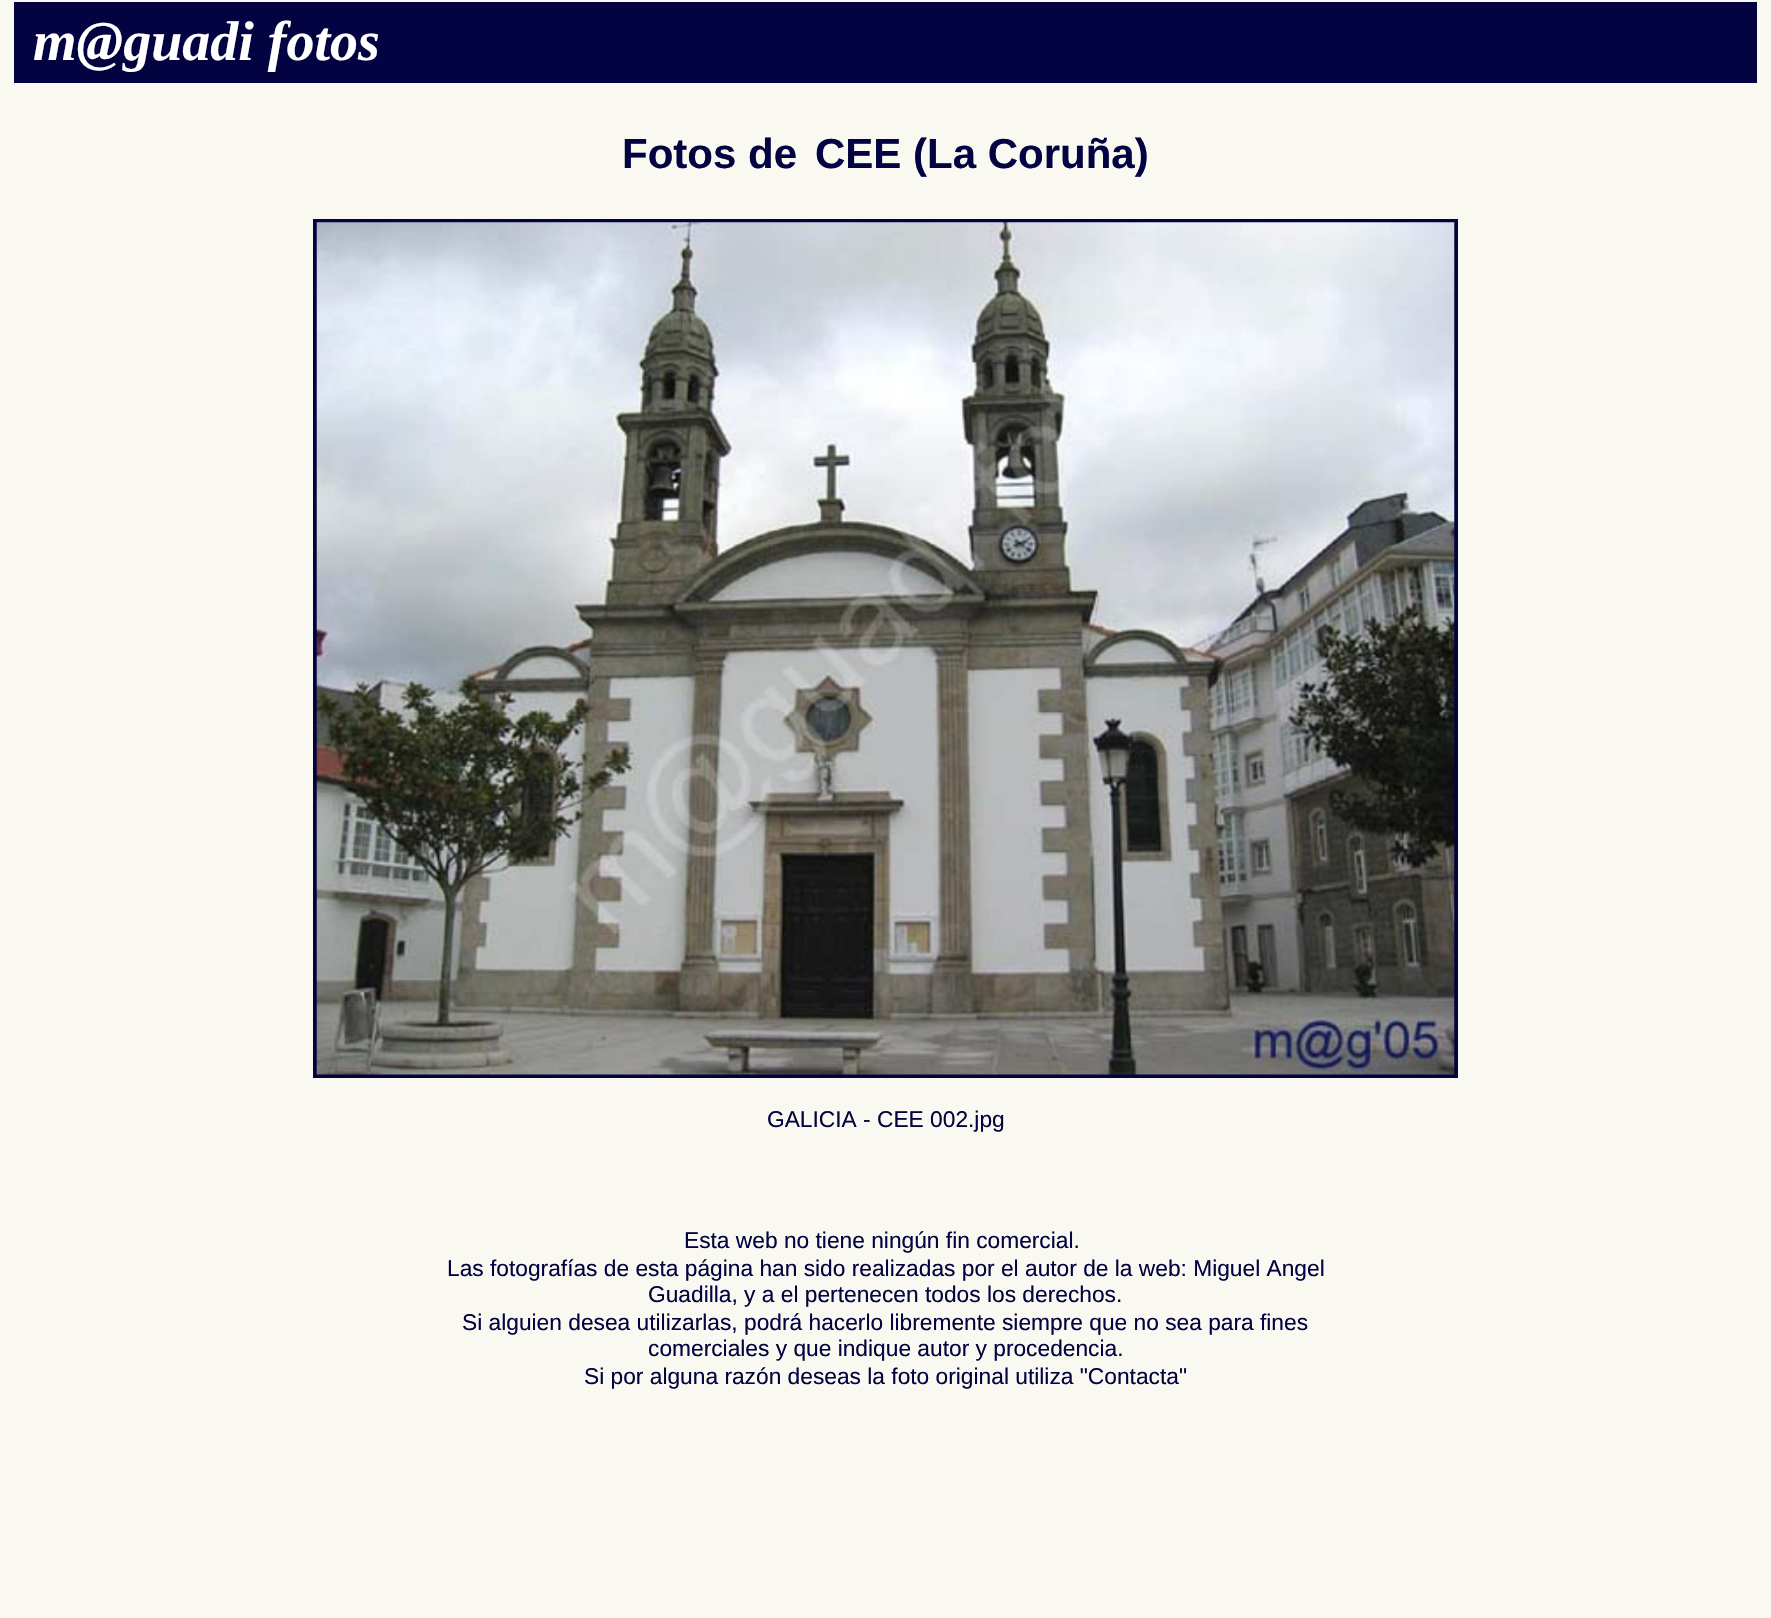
#include "include/core/SkBlurTypes.h"
#include "include/core/SkCanvas.h"
#include "include/core/SkData.h"
#include "include/core/SkFont.h"
#include "include/core/SkFontMgr.h"
#include "include/core/SkImage.h"
#include "include/core/SkMaskFilter.h"
#include "include/core/SkPaint.h"
#include "include/core/SkPathBuilder.h"
#include "include/core/SkTextBlob.h"
#include "include/effects/SkDashPathEffect.h"
#include "include/effects/SkGradientShader.h"
#include "include/utils/SkParsePath.h"

extern sk_sp<SkFontMgr> fontMgr;

static SkFont font(const char* family, int weight, float size, bool italic = false) {
    SkFontStyle style(weight, SkFontStyle::kNormal_Width,
        italic ? SkFontStyle::kItalic_Slant : SkFontStyle::kUpright_Slant);
    SkFont result(fontMgr->matchFamilyStyle(family, style), size);
    result.setSubpixel(true);
    return result;
}

static void drawLabel(SkCanvas* canvas, const char* s, float x, float y, const SkFont& font, SkColor color) {
    SkPaint ink(SkColor4f::FromColor(color));
    ink.setAntiAlias(true);
    canvas->drawString(s, x, y, font, ink);
}

static void fillRect(SkCanvas* canvas, float x, float y, float w, float h, SkColor color) {
    SkPaint ink(SkColor4f::FromColor(color));
    ink.setAntiAlias(true);
    canvas->drawRect(SkRect::MakeXYWH(x, y, w, h), ink);
}

static void drawPhoto(SkCanvas* canvas, const char* path, float x, float y, float w, float h) {
    auto image = SkImages::DeferredFromEncodedData(SkData::MakeFromFileName(path));
    canvas->drawImageRect(image, SkRect::MakeXYWH(x, y, w, h), SkSamplingOptions());
}

void draw(SkCanvas* canvas) {
    SkPaint paint;
    paint.setAntiAlias(true);
    canvas->clear(0xFFF9F9F2);
    fillRect(canvas, 14, 2, 1743, 81, 0xFF020340);
    SkFont font1 = font("Liberation Serif", 700, 56, true);
    drawLabel(canvas, "m@guadi fotos", 33, 60, font1, 0xFFFFFFFF);
    SkFont font2 = font("Liberation Sans", 700, 42);
    drawLabel(canvas, "Fotos de", 622, 168, font2, 0xFF020340);
    drawLabel(canvas, "CEE (La Coruña)", 815, 168, font2, 0xFF020340);
    paint.setStroke(true);
    paint.setStrokeWidth(4);
    paint.setColor(0xFF020340);
    canvas->drawRect(SkRect::MakeXYWH(315, 221, 1141, 855), paint);
    drawPhoto(canvas, "assets/img1.png", 316, 222, 1139, 853);
    SkFont font3 = font("Liberation Sans", 400, 22.75f);
    drawLabel(canvas, "GALICIA - CEE 002.jpg", 767, 1127, font3, 0xFF020340);
    drawLabel(canvas, "Esta web no tiene ningún fin comercial.", 684, 1248, font3, 0xFF020340);
    drawLabel(canvas, "Las fotografías de esta página han sido realizadas por el autor de la web: Miguel Angel", 447, 1276, font3, 0xFF020340);
    drawLabel(canvas, "Guadilla, y a el pertenecen todos los derechos.", 648, 1302, font3, 0xFF020340);
    drawLabel(canvas, "Si alguien desea utilizarlas, podrá hacerlo libremente siempre que no sea para fines", 462, 1330, font3, 0xFF020340);
    drawLabel(canvas, "comerciales y que indique autor y procedencia.", 648, 1356, font3, 0xFF020340);
    drawLabel(canvas, "Si por alguna razón deseas la foto original utiliza \"Contacta\"", 584, 1384, font3, 0xFF020340);
}
